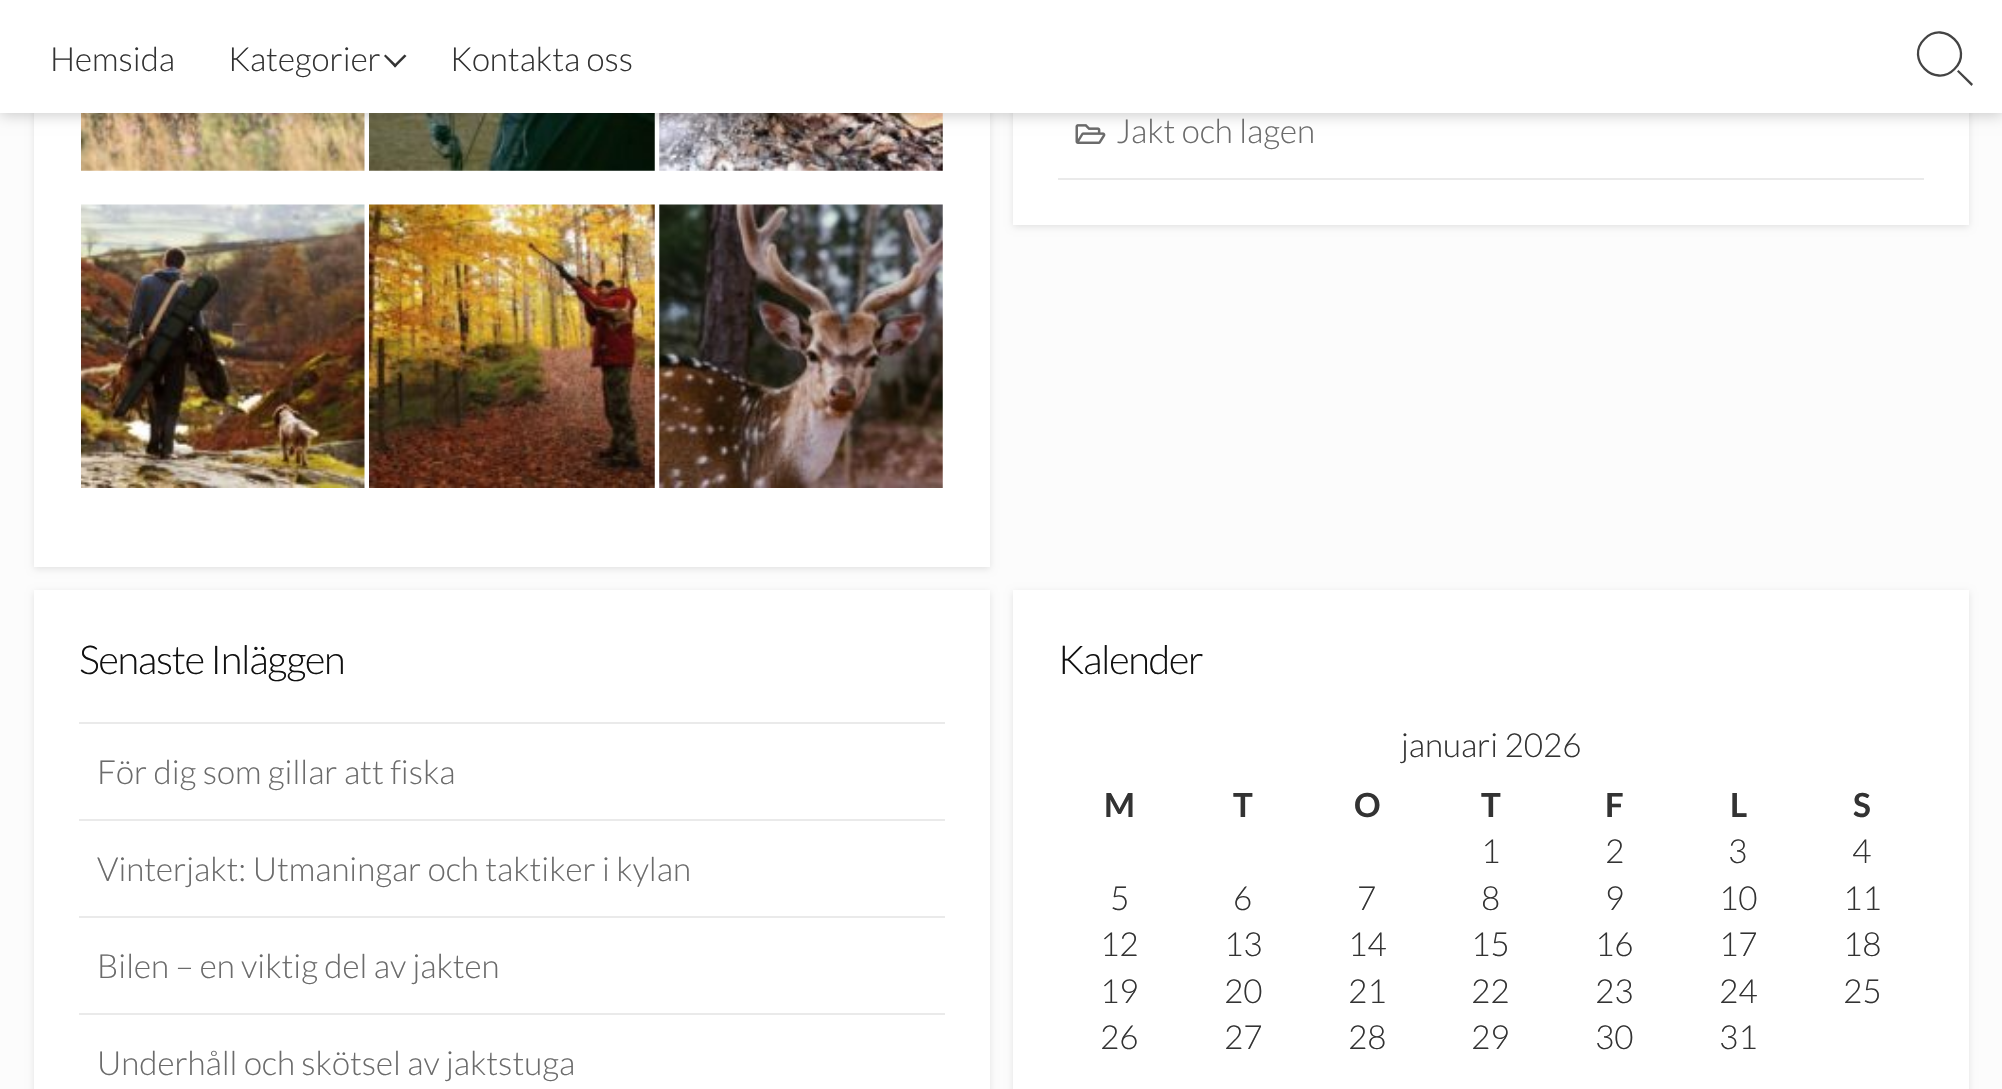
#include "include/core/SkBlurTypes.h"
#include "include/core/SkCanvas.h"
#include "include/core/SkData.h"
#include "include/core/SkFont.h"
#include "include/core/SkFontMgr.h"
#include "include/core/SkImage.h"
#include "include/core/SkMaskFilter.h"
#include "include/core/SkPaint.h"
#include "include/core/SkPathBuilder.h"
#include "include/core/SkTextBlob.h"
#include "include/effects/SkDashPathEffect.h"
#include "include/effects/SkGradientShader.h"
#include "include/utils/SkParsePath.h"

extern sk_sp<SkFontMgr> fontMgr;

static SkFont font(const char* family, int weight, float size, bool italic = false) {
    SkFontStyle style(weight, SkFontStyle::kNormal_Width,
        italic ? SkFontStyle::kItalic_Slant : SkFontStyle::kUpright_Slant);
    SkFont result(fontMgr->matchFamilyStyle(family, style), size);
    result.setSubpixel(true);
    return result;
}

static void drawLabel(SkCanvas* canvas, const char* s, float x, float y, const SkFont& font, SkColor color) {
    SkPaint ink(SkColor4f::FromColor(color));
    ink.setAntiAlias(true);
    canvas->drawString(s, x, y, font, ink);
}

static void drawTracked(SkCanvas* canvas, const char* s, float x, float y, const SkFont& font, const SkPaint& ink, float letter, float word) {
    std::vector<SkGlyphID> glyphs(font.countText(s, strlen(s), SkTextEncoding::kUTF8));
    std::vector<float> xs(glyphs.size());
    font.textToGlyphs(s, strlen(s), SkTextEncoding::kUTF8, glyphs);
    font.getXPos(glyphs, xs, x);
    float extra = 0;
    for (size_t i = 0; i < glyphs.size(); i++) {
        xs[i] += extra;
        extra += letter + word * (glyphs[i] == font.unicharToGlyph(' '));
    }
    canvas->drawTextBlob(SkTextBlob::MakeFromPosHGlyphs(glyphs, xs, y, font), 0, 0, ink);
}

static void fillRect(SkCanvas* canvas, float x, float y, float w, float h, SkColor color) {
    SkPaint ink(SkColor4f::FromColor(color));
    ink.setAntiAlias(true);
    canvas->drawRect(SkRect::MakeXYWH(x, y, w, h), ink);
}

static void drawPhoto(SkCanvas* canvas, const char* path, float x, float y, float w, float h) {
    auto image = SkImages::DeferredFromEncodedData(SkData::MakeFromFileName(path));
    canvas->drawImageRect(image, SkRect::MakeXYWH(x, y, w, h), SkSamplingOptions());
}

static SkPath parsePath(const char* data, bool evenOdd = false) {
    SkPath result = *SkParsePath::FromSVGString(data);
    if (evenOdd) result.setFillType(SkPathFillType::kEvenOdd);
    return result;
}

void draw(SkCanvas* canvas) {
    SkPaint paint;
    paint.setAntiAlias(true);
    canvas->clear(0xFFFCFCFC);
    paint.setColor(0x1A000000);
    paint.setMaskFilter(SkMaskFilter::MakeBlur(kNormal_SkBlurStyle, 3.5f));
    canvas->drawRect(SkRect::MakeXYWH(34, -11, 956, 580), paint);
    paint.setMaskFilter(nullptr);
    fillRect(canvas, 34, 113, 956, 454, 0xFFFFFFFF);
    drawPhoto(canvas, "assets/img1.png", 81, 113, 284, 58);
    drawPhoto(canvas, "assets/img2.png", 369, 113, 286, 58);
    drawPhoto(canvas, "assets/img3.png", 659, 113, 284, 58);
    paint.setMaskFilter(SkMaskFilter::MakeBlur(kNormal_SkBlurStyle, 3.5f));
    canvas->drawRect(SkRect::MakeXYWH(1013, -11, 956, 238), paint);
    paint.setMaskFilter(nullptr);
    fillRect(canvas, 1013, 113, 956, 112, 0xFFFFFFFF);
    drawPhoto(canvas, "assets/img7.png", 1075, 124, 31, 20);
    paint.setColor(0x33000000);
    paint.setMaskFilter(SkMaskFilter::MakeBlur(kNormal_SkBlurStyle, 7));
    canvas->drawRect(SkRect::MakeXYWH(0, -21, 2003, 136), paint);
    paint.setMaskFilter(nullptr);
    fillRect(canvas, 0, 0, 2002, 113, 0xFFFFFFFF);
    SkFont font1 = font("Lato", 300, 33.2f);
    drawLabel(canvas, "Hemsida", 50, 71, font1, 0xFF333333);
    drawLabel(canvas, "Kategorier", 228, 71, font1, 0xFF333333);
    paint.setColor(0xFF333333);
    canvas->drawPath(parsePath("M404.5 54.5L406.5 56L395 67.5L393.5 65.5Z"), paint);
    canvas->drawPath(parsePath("M385.5 54.5L397 65.5L395 67.5L384 56Z"), paint);
    drawLabel(canvas, "Kontakta oss", 450, 71, font1, 0xFF333333);
    paint.setStroke(true);
    paint.setStrokeWidth(2.3f);
    paint.setColor(0xFF444444);
    canvas->drawPath(parsePath("M1924.5 39C1944 19 1974.5 49.5 1954.5 69C1935 89 1904.5 58.5 1924.5 39Z"), paint);
    paint.setStroke(false);
    canvas->drawPath(parsePath("M1957 71.5L1958.5 70L1973 84L1971.5 86Z"), paint);
    drawPhoto(canvas, "assets/img4.png", 81, 204, 284, 284);
    drawPhoto(canvas, "assets/img5.png", 369, 204, 286, 284);
    drawPhoto(canvas, "assets/img6.png", 659, 204, 284, 284);
    fillRect(canvas, 1058, 178, 866, 2, 0xFFEAEAEA);
    drawLabel(canvas, "Jakt och lagen", 1116, 143, font1, 0xFF6B6B6B);
    paint.setColor(0x1A000000);
    paint.setMaskFilter(SkMaskFilter::MakeBlur(kNormal_SkBlurStyle, 3.5f));
    canvas->drawRect(SkRect::MakeXYWH(34, 592, 956, 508), paint);
    paint.setMaskFilter(nullptr);
    fillRect(canvas, 34, 590, 956, 499, 0xFFFFFFFF);
    SkFont font2 = font("Lato", 300, 39.75f);
    paint.setColor(0xFF111111);
    drawTracked(canvas, "Senaste Inläggen", 79, 674, font2, paint, -1.25f, 0);
    fillRect(canvas, 79, 722, 866, 2, 0xFFEAEAEA);
    fillRect(canvas, 79, 819, 866, 2, 0xFFEAEAEA);
    drawLabel(canvas, "För dig som gillar att fiska", 97, 784, font1, 0xFF6B6B6B);
    fillRect(canvas, 79, 916, 866, 2, 0xFFEAEAEA);
    drawLabel(canvas, "Vinterjakt: Utmaningar och taktiker i kylan", 97, 881, font1, 0xFF6B6B6B);
    fillRect(canvas, 79, 1013, 866, 2, 0xFFEAEAEA);
    drawLabel(canvas, "Bilen – en viktig del av jakten", 97, 978, font1, 0xFF6B6B6B);
    drawLabel(canvas, "Underhåll och skötsel av jaktstuga", 97, 1075, font1, 0xFF6B6B6B);
    paint.setColor(0x1A000000);
    paint.setMaskFilter(SkMaskFilter::MakeBlur(kNormal_SkBlurStyle, 3.5f));
    canvas->drawRect(SkRect::MakeXYWH(1013, 592, 956, 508), paint);
    paint.setMaskFilter(nullptr);
    fillRect(canvas, 1013, 590, 956, 499, 0xFFFFFFFF);
    paint.setColor(0xFF111111);
    drawTracked(canvas, "Kalender", 1058, 674, font2, paint, -1.25f, 0);
    drawLabel(canvas, "januari 2026", 1401, 757, font1, 0xFF333333);
    SkFont font3 = font("Lato", 700, 33.2f);
    drawLabel(canvas, "M", 1104, 817, font3, 0xFF333333);
    drawLabel(canvas, "T", 1233, 817, font3, 0xFF333333);
    drawLabel(canvas, "O", 1354, 817, font3, 0xFF333333);
    drawLabel(canvas, "T", 1481, 817, font3, 0xFF333333);
    drawLabel(canvas, "F", 1605, 817, font3, 0xFF333333);
    drawLabel(canvas, "L", 1730, 817, font3, 0xFF333333);
    drawLabel(canvas, "S", 1853, 817, font3, 0xFF333333);
    drawLabel(canvas, "1", 1481, 863, font1, 0xFF333333);
    drawLabel(canvas, "2", 1605, 863, font1, 0xFF333333);
    drawLabel(canvas, "3", 1728, 863, font1, 0xFF333333);
    drawLabel(canvas, "4", 1852, 863, font1, 0xFF333333);
    drawLabel(canvas, "5", 1110, 910, font1, 0xFF333333);
    drawLabel(canvas, "6", 1233, 910, font1, 0xFF333333);
    drawLabel(canvas, "7", 1357, 910, font1, 0xFF333333);
    drawLabel(canvas, "8", 1481, 910, font1, 0xFF333333);
    drawLabel(canvas, "9", 1605, 910, font1, 0xFF333333);
    drawLabel(canvas, "10", 1719, 910, font1, 0xFF333333);
    drawLabel(canvas, "11", 1843, 910, font1, 0xFF333333);
    drawLabel(canvas, "12", 1100, 956, font1, 0xFF333333);
    drawLabel(canvas, "13", 1224, 956, font1, 0xFF333333);
    drawLabel(canvas, "14", 1348, 956, font1, 0xFF333333);
    drawLabel(canvas, "15", 1471, 956, font1, 0xFF333333);
    drawLabel(canvas, "16", 1595, 956, font1, 0xFF333333);
    drawLabel(canvas, "17", 1719, 956, font1, 0xFF333333);
    drawLabel(canvas, "18", 1843, 956, font1, 0xFF333333);
    drawLabel(canvas, "19", 1100, 1003, font1, 0xFF333333);
    drawLabel(canvas, "20", 1224, 1003, font1, 0xFF333333);
    drawLabel(canvas, "21", 1348, 1003, font1, 0xFF333333);
    drawLabel(canvas, "22", 1471, 1003, font1, 0xFF333333);
    drawLabel(canvas, "23", 1595, 1003, font1, 0xFF333333);
    drawLabel(canvas, "24", 1719, 1003, font1, 0xFF333333);
    drawLabel(canvas, "25", 1843, 1003, font1, 0xFF333333);
    drawLabel(canvas, "26", 1100, 1049, font1, 0xFF333333);
    drawLabel(canvas, "27", 1224, 1049, font1, 0xFF333333);
    drawLabel(canvas, "28", 1348, 1049, font1, 0xFF333333);
    drawLabel(canvas, "29", 1471, 1049, font1, 0xFF333333);
    drawLabel(canvas, "30", 1595, 1049, font1, 0xFF333333);
    drawLabel(canvas, "31", 1719, 1049, font1, 0xFF333333);
}
